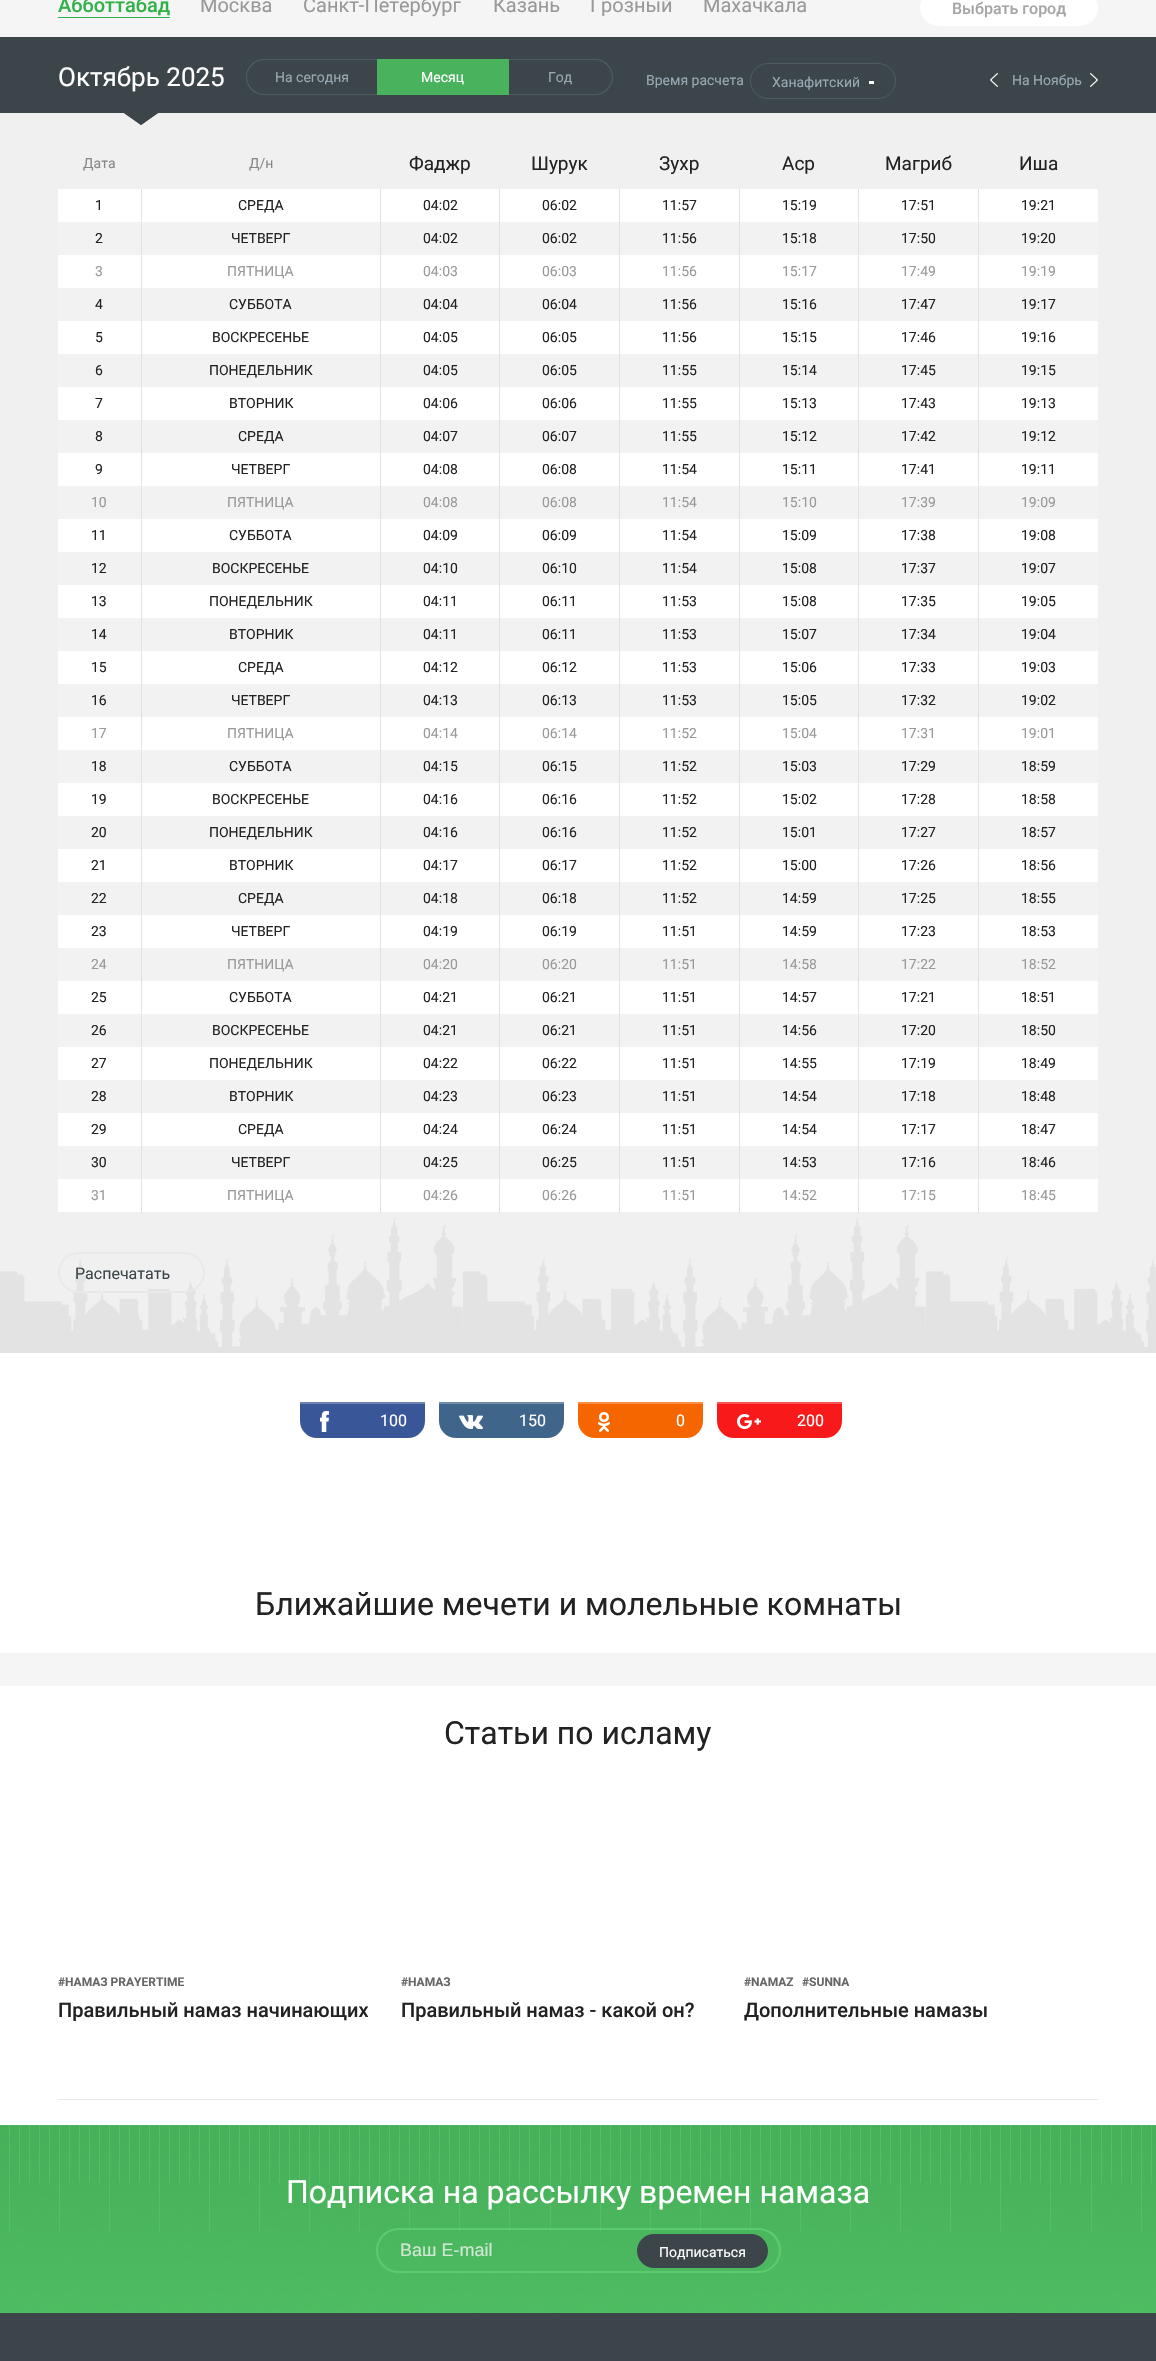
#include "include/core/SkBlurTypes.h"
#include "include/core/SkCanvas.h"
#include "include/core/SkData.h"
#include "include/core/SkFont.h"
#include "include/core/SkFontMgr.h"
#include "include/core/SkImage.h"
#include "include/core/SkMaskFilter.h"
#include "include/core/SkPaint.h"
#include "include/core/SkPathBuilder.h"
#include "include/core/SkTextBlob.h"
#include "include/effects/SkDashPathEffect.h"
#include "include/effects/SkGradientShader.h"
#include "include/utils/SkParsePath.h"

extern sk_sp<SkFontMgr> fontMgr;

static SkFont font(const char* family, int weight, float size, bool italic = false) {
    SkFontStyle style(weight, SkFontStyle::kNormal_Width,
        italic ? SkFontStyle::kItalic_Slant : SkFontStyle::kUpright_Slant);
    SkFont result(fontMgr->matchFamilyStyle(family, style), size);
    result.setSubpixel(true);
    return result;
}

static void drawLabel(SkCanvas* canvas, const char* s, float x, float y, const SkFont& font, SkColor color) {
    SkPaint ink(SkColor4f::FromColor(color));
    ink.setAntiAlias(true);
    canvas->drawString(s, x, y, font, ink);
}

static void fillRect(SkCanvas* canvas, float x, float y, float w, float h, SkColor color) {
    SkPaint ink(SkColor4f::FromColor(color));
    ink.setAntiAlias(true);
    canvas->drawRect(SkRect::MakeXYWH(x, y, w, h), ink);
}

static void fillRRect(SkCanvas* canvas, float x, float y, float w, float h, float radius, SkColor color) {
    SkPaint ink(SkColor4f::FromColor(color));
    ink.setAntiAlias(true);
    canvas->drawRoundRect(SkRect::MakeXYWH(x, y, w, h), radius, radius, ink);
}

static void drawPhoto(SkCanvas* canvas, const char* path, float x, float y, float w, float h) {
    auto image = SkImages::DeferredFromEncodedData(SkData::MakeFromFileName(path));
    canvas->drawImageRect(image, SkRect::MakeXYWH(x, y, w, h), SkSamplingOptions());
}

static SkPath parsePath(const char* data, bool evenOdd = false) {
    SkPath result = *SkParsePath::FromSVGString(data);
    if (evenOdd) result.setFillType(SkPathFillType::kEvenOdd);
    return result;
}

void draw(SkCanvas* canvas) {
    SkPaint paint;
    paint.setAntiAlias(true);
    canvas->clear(0xFFFFFFFF);
    fillRect(canvas, 0, 0, 1156, 37, 0xFFF5F5F5);
    SkFont font1 = font("Roboto", 500, 20);
    drawLabel(canvas, "Абботтабад", 58, 12, font1, 0xFF31B149);
    fillRect(canvas, 58, 17, 112, 1, 0xFF31B149);
    SkFont font2 = font("Roboto", 400, 20);
    drawLabel(canvas, "Москва", 200, 12, font2, 0xFF999999);
    drawLabel(canvas, "Санкт-Петербург", 303, 12, font2, 0xFF999999);
    drawLabel(canvas, "Казань", 493, 12, font2, 0xFF999999);
    drawLabel(canvas, "Грозный", 590, 12, font2, 0xFF999999);
    drawLabel(canvas, "Махачкала", 703, 12, font2, 0xFF999999);
    fillRRect(canvas, 920, -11, 178, 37, 18.5f, 0xFFFFFFFF);
    SkFont font3 = font("Roboto", 500, 16);
    drawLabel(canvas, "Выбрать город", 952, 14, font3, 0xFFA5A5A5);
    fillRect(canvas, 0, 37, 1156, 76, 0xFF3B454A);
    SkFont font4 = font("Roboto", 400, 26);
    drawLabel(canvas, "Октябрь 2025", 58, 86, font4, 0xFFFFFFFF);
    paint.setColor(0xFF4E5B61);
    canvas->drawPath(parsePath("M264 59H377V95H264C254 95 246 87 246 77C246 67 254 59 264 59ZM264 60H377V94H264C255 94 247 86 247 77C247 68 255 60 264 60Z", true), paint);
    SkFont font5 = font("Roboto", 400, 14);
    drawLabel(canvas, "На сегодня", 275, 82, font5, 0xFF99A9B1);
    fillRect(canvas, 377, 59, 132, 36, 0xFF48B25C);
    drawLabel(canvas, "Месяц", 421, 82, font5, 0xFFFFFFFF);
    canvas->drawPath(parsePath("M509 59H595C605 59 613 67 613 77C613 87 605 95 595 95H509ZM509 60H595C604 60 612 68 612 77C612 86 604 94 595 94H509Z", true), paint);
    drawLabel(canvas, "Год", 548, 82, font5, 0xFF99A9B1);
    drawLabel(canvas, "Время расчета", 646, 85, font5, 0xFF99A9B1);
    paint.setStroke(true);
    paint.setStrokeWidth(1);
    canvas->drawRoundRect(SkRect::MakeXYWH(750.5f, 63.5f, 145, 35), 17.5f, 17.5f, paint);
    drawLabel(canvas, "Ханафитский", 772, 87, font5, 0xFF99A9B1);
    fillRect(canvas, 869, 81, 5, 3, 0xFFFFFFFF);
    drawPhoto(canvas, "assets/img1.png", 990, 73, 8, 14);
    drawLabel(canvas, "На Ноябрь", 1012, 85, font5, 0xFF99A9B1);
    drawPhoto(canvas, "assets/img2.png", 1090, 73, 8, 14);
    fillRect(canvas, 0, 113, 1156, 1234, 0xFFF0F0F0);
    drawPhoto(canvas, "assets/img3.png", 124, 113, 34, 12);
    drawPhoto(canvas, "assets/img4.png", 0, 1218, 1156, 135);
    drawLabel(canvas, "Дата", 83, 168, font5, 0xFF888888);
    drawLabel(canvas, "Д/н", 249, 168, font5, 0xFF888888);
    SkFont font6 = font("Roboto", 400, 19);
    drawLabel(canvas, "Фаджр", 409, 170, font6, 0xFF222222);
    drawLabel(canvas, "Шурук", 531, 170, font6, 0xFF222222);
    drawLabel(canvas, "Зухр", 659, 170, font6, 0xFF222222);
    drawLabel(canvas, "Аср", 782, 170, font6, 0xFF222222);
    drawLabel(canvas, "Магриб", 885, 170, font6, 0xFF222222);
    drawLabel(canvas, "Иша", 1019, 170, font6, 0xFF222222);
    fillRect(canvas, 58, 189, 1040, 1023, 0xFFFFFFFF);
    drawLabel(canvas, "1", 95, 210, font5, 0xFF222222);
    drawLabel(canvas, "СРЕДА", 238, 210, font5, 0xFF222222);
    drawLabel(canvas, "04:02", 423, 210, font5, 0xFF222222);
    drawLabel(canvas, "06:02", 542, 210, font5, 0xFF222222);
    drawLabel(canvas, "11:57", 662, 210, font5, 0xFF222222);
    drawLabel(canvas, "15:19", 782, 210, font5, 0xFF222222);
    drawLabel(canvas, "17:51", 901, 210, font5, 0xFF222222);
    drawLabel(canvas, "19:21", 1021, 210, font5, 0xFF222222);
    fillRect(canvas, 58, 222, 1040, 33, 0xFFF2F2F2);
    drawLabel(canvas, "2", 95, 243, font5, 0xFF222222);
    drawLabel(canvas, "ЧЕТВЕРГ", 231, 243, font5, 0xFF222222);
    drawLabel(canvas, "04:02", 423, 243, font5, 0xFF222222);
    drawLabel(canvas, "06:02", 542, 243, font5, 0xFF222222);
    drawLabel(canvas, "11:56", 662, 243, font5, 0xFF222222);
    drawLabel(canvas, "15:18", 782, 243, font5, 0xFF222222);
    drawLabel(canvas, "17:50", 901, 243, font5, 0xFF222222);
    drawLabel(canvas, "19:20", 1021, 243, font5, 0xFF222222);
    drawLabel(canvas, "3", 95, 276, font5, 0xFF999999);
    drawLabel(canvas, "ПЯТНИЦА", 227, 276, font5, 0xFF999999);
    drawLabel(canvas, "04:03", 423, 276, font5, 0xFF999999);
    drawLabel(canvas, "06:03", 542, 276, font5, 0xFF999999);
    drawLabel(canvas, "11:56", 662, 276, font5, 0xFF999999);
    drawLabel(canvas, "15:17", 782, 276, font5, 0xFF999999);
    drawLabel(canvas, "17:49", 901, 276, font5, 0xFF999999);
    drawLabel(canvas, "19:19", 1021, 276, font5, 0xFF999999);
    fillRect(canvas, 58, 288, 1040, 33, 0xFFF2F2F2);
    drawLabel(canvas, "4", 95, 309, font5, 0xFF222222);
    drawLabel(canvas, "СУББОТА", 229, 309, font5, 0xFF222222);
    drawLabel(canvas, "04:04", 423, 309, font5, 0xFF222222);
    drawLabel(canvas, "06:04", 542, 309, font5, 0xFF222222);
    drawLabel(canvas, "11:56", 662, 309, font5, 0xFF222222);
    drawLabel(canvas, "15:16", 782, 309, font5, 0xFF222222);
    drawLabel(canvas, "17:47", 901, 309, font5, 0xFF222222);
    drawLabel(canvas, "19:17", 1021, 309, font5, 0xFF222222);
    drawLabel(canvas, "5", 95, 342, font5, 0xFF222222);
    drawLabel(canvas, "ВОСКРЕСЕНЬЕ", 212, 342, font5, 0xFF222222);
    drawLabel(canvas, "04:05", 423, 342, font5, 0xFF222222);
    drawLabel(canvas, "06:05", 542, 342, font5, 0xFF222222);
    drawLabel(canvas, "11:56", 662, 342, font5, 0xFF222222);
    drawLabel(canvas, "15:15", 782, 342, font5, 0xFF222222);
    drawLabel(canvas, "17:46", 901, 342, font5, 0xFF222222);
    drawLabel(canvas, "19:16", 1021, 342, font5, 0xFF222222);
    fillRect(canvas, 58, 354, 1040, 33, 0xFFF2F2F2);
    drawLabel(canvas, "6", 95, 375, font5, 0xFF222222);
    drawLabel(canvas, "ПОНЕДЕЛЬНИК", 209, 375, font5, 0xFF222222);
    drawLabel(canvas, "04:05", 423, 375, font5, 0xFF222222);
    drawLabel(canvas, "06:05", 542, 375, font5, 0xFF222222);
    drawLabel(canvas, "11:55", 662, 375, font5, 0xFF222222);
    drawLabel(canvas, "15:14", 782, 375, font5, 0xFF222222);
    drawLabel(canvas, "17:45", 901, 375, font5, 0xFF222222);
    drawLabel(canvas, "19:15", 1021, 375, font5, 0xFF222222);
    drawLabel(canvas, "7", 95, 408, font5, 0xFF222222);
    drawLabel(canvas, "ВТОРНИК", 229, 408, font5, 0xFF222222);
    drawLabel(canvas, "04:06", 423, 408, font5, 0xFF222222);
    drawLabel(canvas, "06:06", 542, 408, font5, 0xFF222222);
    drawLabel(canvas, "11:55", 662, 408, font5, 0xFF222222);
    drawLabel(canvas, "15:13", 782, 408, font5, 0xFF222222);
    drawLabel(canvas, "17:43", 901, 408, font5, 0xFF222222);
    drawLabel(canvas, "19:13", 1021, 408, font5, 0xFF222222);
    fillRect(canvas, 58, 420, 1040, 33, 0xFFF2F2F2);
    drawLabel(canvas, "8", 95, 441, font5, 0xFF222222);
    drawLabel(canvas, "СРЕДА", 238, 441, font5, 0xFF222222);
    drawLabel(canvas, "04:07", 423, 441, font5, 0xFF222222);
    drawLabel(canvas, "06:07", 542, 441, font5, 0xFF222222);
    drawLabel(canvas, "11:55", 662, 441, font5, 0xFF222222);
    drawLabel(canvas, "15:12", 782, 441, font5, 0xFF222222);
    drawLabel(canvas, "17:42", 901, 441, font5, 0xFF222222);
    drawLabel(canvas, "19:12", 1021, 441, font5, 0xFF222222);
    drawLabel(canvas, "9", 95, 474, font5, 0xFF222222);
    drawLabel(canvas, "ЧЕТВЕРГ", 231, 474, font5, 0xFF222222);
    drawLabel(canvas, "04:08", 423, 474, font5, 0xFF222222);
    drawLabel(canvas, "06:08", 542, 474, font5, 0xFF222222);
    drawLabel(canvas, "11:54", 662, 474, font5, 0xFF222222);
    drawLabel(canvas, "15:11", 782, 474, font5, 0xFF222222);
    drawLabel(canvas, "17:41", 901, 474, font5, 0xFF222222);
    drawLabel(canvas, "19:11", 1021, 474, font5, 0xFF222222);
    fillRect(canvas, 58, 486, 1040, 33, 0xFFF2F2F2);
    drawLabel(canvas, "10", 91, 507, font5, 0xFF999999);
    drawLabel(canvas, "ПЯТНИЦА", 227, 507, font5, 0xFF999999);
    drawLabel(canvas, "04:08", 423, 507, font5, 0xFF999999);
    drawLabel(canvas, "06:08", 542, 507, font5, 0xFF999999);
    drawLabel(canvas, "11:54", 662, 507, font5, 0xFF999999);
    drawLabel(canvas, "15:10", 782, 507, font5, 0xFF999999);
    drawLabel(canvas, "17:39", 901, 507, font5, 0xFF999999);
    drawLabel(canvas, "19:09", 1021, 507, font5, 0xFF999999);
    drawLabel(canvas, "11", 91, 540, font5, 0xFF222222);
    drawLabel(canvas, "СУББОТА", 229, 540, font5, 0xFF222222);
    drawLabel(canvas, "04:09", 423, 540, font5, 0xFF222222);
    drawLabel(canvas, "06:09", 542, 540, font5, 0xFF222222);
    drawLabel(canvas, "11:54", 662, 540, font5, 0xFF222222);
    drawLabel(canvas, "15:09", 782, 540, font5, 0xFF222222);
    drawLabel(canvas, "17:38", 901, 540, font5, 0xFF222222);
    drawLabel(canvas, "19:08", 1021, 540, font5, 0xFF222222);
    fillRect(canvas, 58, 552, 1040, 33, 0xFFF2F2F2);
    drawLabel(canvas, "12", 91, 573, font5, 0xFF222222);
    drawLabel(canvas, "ВОСКРЕСЕНЬЕ", 212, 573, font5, 0xFF222222);
    drawLabel(canvas, "04:10", 423, 573, font5, 0xFF222222);
    drawLabel(canvas, "06:10", 542, 573, font5, 0xFF222222);
    drawLabel(canvas, "11:54", 662, 573, font5, 0xFF222222);
    drawLabel(canvas, "15:08", 782, 573, font5, 0xFF222222);
    drawLabel(canvas, "17:37", 901, 573, font5, 0xFF222222);
    drawLabel(canvas, "19:07", 1021, 573, font5, 0xFF222222);
    drawLabel(canvas, "13", 91, 606, font5, 0xFF222222);
    drawLabel(canvas, "ПОНЕДЕЛЬНИК", 209, 606, font5, 0xFF222222);
    drawLabel(canvas, "04:11", 423, 606, font5, 0xFF222222);
    drawLabel(canvas, "06:11", 542, 606, font5, 0xFF222222);
    drawLabel(canvas, "11:53", 662, 606, font5, 0xFF222222);
    drawLabel(canvas, "15:08", 782, 606, font5, 0xFF222222);
    drawLabel(canvas, "17:35", 901, 606, font5, 0xFF222222);
    drawLabel(canvas, "19:05", 1021, 606, font5, 0xFF222222);
    fillRect(canvas, 58, 618, 1040, 33, 0xFFF2F2F2);
    drawLabel(canvas, "14", 91, 639, font5, 0xFF222222);
    drawLabel(canvas, "ВТОРНИК", 229, 639, font5, 0xFF222222);
    drawLabel(canvas, "04:11", 423, 639, font5, 0xFF222222);
    drawLabel(canvas, "06:11", 542, 639, font5, 0xFF222222);
    drawLabel(canvas, "11:53", 662, 639, font5, 0xFF222222);
    drawLabel(canvas, "15:07", 782, 639, font5, 0xFF222222);
    drawLabel(canvas, "17:34", 901, 639, font5, 0xFF222222);
    drawLabel(canvas, "19:04", 1021, 639, font5, 0xFF222222);
    drawLabel(canvas, "15", 91, 672, font5, 0xFF222222);
    drawLabel(canvas, "СРЕДА", 238, 672, font5, 0xFF222222);
    drawLabel(canvas, "04:12", 423, 672, font5, 0xFF222222);
    drawLabel(canvas, "06:12", 542, 672, font5, 0xFF222222);
    drawLabel(canvas, "11:53", 662, 672, font5, 0xFF222222);
    drawLabel(canvas, "15:06", 782, 672, font5, 0xFF222222);
    drawLabel(canvas, "17:33", 901, 672, font5, 0xFF222222);
    drawLabel(canvas, "19:03", 1021, 672, font5, 0xFF222222);
    fillRect(canvas, 58, 684, 1040, 33, 0xFFF2F2F2);
    drawLabel(canvas, "16", 91, 705, font5, 0xFF222222);
    drawLabel(canvas, "ЧЕТВЕРГ", 231, 705, font5, 0xFF222222);
    drawLabel(canvas, "04:13", 423, 705, font5, 0xFF222222);
    drawLabel(canvas, "06:13", 542, 705, font5, 0xFF222222);
    drawLabel(canvas, "11:53", 662, 705, font5, 0xFF222222);
    drawLabel(canvas, "15:05", 782, 705, font5, 0xFF222222);
    drawLabel(canvas, "17:32", 901, 705, font5, 0xFF222222);
    drawLabel(canvas, "19:02", 1021, 705, font5, 0xFF222222);
    drawLabel(canvas, "17", 91, 738, font5, 0xFF999999);
    drawLabel(canvas, "ПЯТНИЦА", 227, 738, font5, 0xFF999999);
    drawLabel(canvas, "04:14", 423, 738, font5, 0xFF999999);
    drawLabel(canvas, "06:14", 542, 738, font5, 0xFF999999);
    drawLabel(canvas, "11:52", 662, 738, font5, 0xFF999999);
    drawLabel(canvas, "15:04", 782, 738, font5, 0xFF999999);
    drawLabel(canvas, "17:31", 901, 738, font5, 0xFF999999);
    drawLabel(canvas, "19:01", 1021, 738, font5, 0xFF999999);
    fillRect(canvas, 58, 750, 1040, 33, 0xFFF2F2F2);
    drawLabel(canvas, "18", 91, 771, font5, 0xFF222222);
    drawLabel(canvas, "СУББОТА", 229, 771, font5, 0xFF222222);
    drawLabel(canvas, "04:15", 423, 771, font5, 0xFF222222);
    drawLabel(canvas, "06:15", 542, 771, font5, 0xFF222222);
    drawLabel(canvas, "11:52", 662, 771, font5, 0xFF222222);
    drawLabel(canvas, "15:03", 782, 771, font5, 0xFF222222);
    drawLabel(canvas, "17:29", 901, 771, font5, 0xFF222222);
    drawLabel(canvas, "18:59", 1021, 771, font5, 0xFF222222);
    drawLabel(canvas, "19", 91, 804, font5, 0xFF222222);
    drawLabel(canvas, "ВОСКРЕСЕНЬЕ", 212, 804, font5, 0xFF222222);
    drawLabel(canvas, "04:16", 423, 804, font5, 0xFF222222);
    drawLabel(canvas, "06:16", 542, 804, font5, 0xFF222222);
    drawLabel(canvas, "11:52", 662, 804, font5, 0xFF222222);
    drawLabel(canvas, "15:02", 782, 804, font5, 0xFF222222);
    drawLabel(canvas, "17:28", 901, 804, font5, 0xFF222222);
    drawLabel(canvas, "18:58", 1021, 804, font5, 0xFF222222);
    fillRect(canvas, 58, 816, 1040, 33, 0xFFF2F2F2);
    drawLabel(canvas, "20", 91, 837, font5, 0xFF222222);
    drawLabel(canvas, "ПОНЕДЕЛЬНИК", 209, 837, font5, 0xFF222222);
    drawLabel(canvas, "04:16", 423, 837, font5, 0xFF222222);
    drawLabel(canvas, "06:16", 542, 837, font5, 0xFF222222);
    drawLabel(canvas, "11:52", 662, 837, font5, 0xFF222222);
    drawLabel(canvas, "15:01", 782, 837, font5, 0xFF222222);
    drawLabel(canvas, "17:27", 901, 837, font5, 0xFF222222);
    drawLabel(canvas, "18:57", 1021, 837, font5, 0xFF222222);
    drawLabel(canvas, "21", 91, 870, font5, 0xFF222222);
    drawLabel(canvas, "ВТОРНИК", 229, 870, font5, 0xFF222222);
    drawLabel(canvas, "04:17", 423, 870, font5, 0xFF222222);
    drawLabel(canvas, "06:17", 542, 870, font5, 0xFF222222);
    drawLabel(canvas, "11:52", 662, 870, font5, 0xFF222222);
    drawLabel(canvas, "15:00", 782, 870, font5, 0xFF222222);
    drawLabel(canvas, "17:26", 901, 870, font5, 0xFF222222);
    drawLabel(canvas, "18:56", 1021, 870, font5, 0xFF222222);
    fillRect(canvas, 58, 882, 1040, 33, 0xFFF2F2F2);
    drawLabel(canvas, "22", 91, 903, font5, 0xFF222222);
    drawLabel(canvas, "СРЕДА", 238, 903, font5, 0xFF222222);
    drawLabel(canvas, "04:18", 423, 903, font5, 0xFF222222);
    drawLabel(canvas, "06:18", 542, 903, font5, 0xFF222222);
    drawLabel(canvas, "11:52", 662, 903, font5, 0xFF222222);
    drawLabel(canvas, "14:59", 782, 903, font5, 0xFF222222);
    drawLabel(canvas, "17:25", 901, 903, font5, 0xFF222222);
    drawLabel(canvas, "18:55", 1021, 903, font5, 0xFF222222);
    drawLabel(canvas, "23", 91, 936, font5, 0xFF222222);
    drawLabel(canvas, "ЧЕТВЕРГ", 231, 936, font5, 0xFF222222);
    drawLabel(canvas, "04:19", 423, 936, font5, 0xFF222222);
    drawLabel(canvas, "06:19", 542, 936, font5, 0xFF222222);
    drawLabel(canvas, "11:51", 662, 936, font5, 0xFF222222);
    drawLabel(canvas, "14:59", 782, 936, font5, 0xFF222222);
    drawLabel(canvas, "17:23", 901, 936, font5, 0xFF222222);
    drawLabel(canvas, "18:53", 1021, 936, font5, 0xFF222222);
    fillRect(canvas, 58, 948, 1040, 33, 0xFFF2F2F2);
    drawLabel(canvas, "24", 91, 969, font5, 0xFF999999);
    drawLabel(canvas, "ПЯТНИЦА", 227, 969, font5, 0xFF999999);
    drawLabel(canvas, "04:20", 423, 969, font5, 0xFF999999);
    drawLabel(canvas, "06:20", 542, 969, font5, 0xFF999999);
    drawLabel(canvas, "11:51", 662, 969, font5, 0xFF999999);
    drawLabel(canvas, "14:58", 782, 969, font5, 0xFF999999);
    drawLabel(canvas, "17:22", 901, 969, font5, 0xFF999999);
    drawLabel(canvas, "18:52", 1021, 969, font5, 0xFF999999);
    drawLabel(canvas, "25", 91, 1002, font5, 0xFF222222);
    drawLabel(canvas, "СУББОТА", 229, 1002, font5, 0xFF222222);
    drawLabel(canvas, "04:21", 423, 1002, font5, 0xFF222222);
    drawLabel(canvas, "06:21", 542, 1002, font5, 0xFF222222);
    drawLabel(canvas, "11:51", 662, 1002, font5, 0xFF222222);
    drawLabel(canvas, "14:57", 782, 1002, font5, 0xFF222222);
    drawLabel(canvas, "17:21", 901, 1002, font5, 0xFF222222);
    drawLabel(canvas, "18:51", 1021, 1002, font5, 0xFF222222);
    fillRect(canvas, 58, 1014, 1040, 33, 0xFFF2F2F2);
    drawLabel(canvas, "26", 91, 1035, font5, 0xFF222222);
    drawLabel(canvas, "ВОСКРЕСЕНЬЕ", 212, 1035, font5, 0xFF222222);
    drawLabel(canvas, "04:21", 423, 1035, font5, 0xFF222222);
    drawLabel(canvas, "06:21", 542, 1035, font5, 0xFF222222);
    drawLabel(canvas, "11:51", 662, 1035, font5, 0xFF222222);
    drawLabel(canvas, "14:56", 782, 1035, font5, 0xFF222222);
    drawLabel(canvas, "17:20", 901, 1035, font5, 0xFF222222);
    drawLabel(canvas, "18:50", 1021, 1035, font5, 0xFF222222);
    drawLabel(canvas, "27", 91, 1068, font5, 0xFF222222);
    drawLabel(canvas, "ПОНЕДЕЛЬНИК", 209, 1068, font5, 0xFF222222);
    drawLabel(canvas, "04:22", 423, 1068, font5, 0xFF222222);
    drawLabel(canvas, "06:22", 542, 1068, font5, 0xFF222222);
    drawLabel(canvas, "11:51", 662, 1068, font5, 0xFF222222);
    drawLabel(canvas, "14:55", 782, 1068, font5, 0xFF222222);
    drawLabel(canvas, "17:19", 901, 1068, font5, 0xFF222222);
    drawLabel(canvas, "18:49", 1021, 1068, font5, 0xFF222222);
    fillRect(canvas, 58, 1080, 1040, 33, 0xFFF2F2F2);
    drawLabel(canvas, "28", 91, 1101, font5, 0xFF222222);
    drawLabel(canvas, "ВТОРНИК", 229, 1101, font5, 0xFF222222);
    drawLabel(canvas, "04:23", 423, 1101, font5, 0xFF222222);
    drawLabel(canvas, "06:23", 542, 1101, font5, 0xFF222222);
    drawLabel(canvas, "11:51", 662, 1101, font5, 0xFF222222);
    drawLabel(canvas, "14:54", 782, 1101, font5, 0xFF222222);
    drawLabel(canvas, "17:18", 901, 1101, font5, 0xFF222222);
    drawLabel(canvas, "18:48", 1021, 1101, font5, 0xFF222222);
    drawLabel(canvas, "29", 91, 1134, font5, 0xFF222222);
    drawLabel(canvas, "СРЕДА", 238, 1134, font5, 0xFF222222);
    drawLabel(canvas, "04:24", 423, 1134, font5, 0xFF222222);
    drawLabel(canvas, "06:24", 542, 1134, font5, 0xFF222222);
    drawLabel(canvas, "11:51", 662, 1134, font5, 0xFF222222);
    drawLabel(canvas, "14:54", 782, 1134, font5, 0xFF222222);
    drawLabel(canvas, "17:17", 901, 1134, font5, 0xFF222222);
    drawLabel(canvas, "18:47", 1021, 1134, font5, 0xFF222222);
    fillRect(canvas, 58, 1146, 1040, 33, 0xFFF2F2F2);
    drawLabel(canvas, "30", 91, 1167, font5, 0xFF222222);
    drawLabel(canvas, "ЧЕТВЕРГ", 231, 1167, font5, 0xFF222222);
    drawLabel(canvas, "04:25", 423, 1167, font5, 0xFF222222);
    drawLabel(canvas, "06:25", 542, 1167, font5, 0xFF222222);
    drawLabel(canvas, "11:51", 662, 1167, font5, 0xFF222222);
    drawLabel(canvas, "14:53", 782, 1167, font5, 0xFF222222);
    drawLabel(canvas, "17:16", 901, 1167, font5, 0xFF222222);
    drawLabel(canvas, "18:46", 1021, 1167, font5, 0xFF222222);
    fillRect(canvas, 141, 189, 1, 1024, 0xFFE2E2E2);
    drawLabel(canvas, "31", 91, 1200, font5, 0xFF999999);
    fillRect(canvas, 380, 189, 1, 1024, 0xFFE2E2E2);
    drawLabel(canvas, "ПЯТНИЦА", 227, 1200, font5, 0xFF999999);
    fillRect(canvas, 499, 189, 1, 1024, 0xFFE2E2E2);
    drawLabel(canvas, "04:26", 423, 1200, font5, 0xFF999999);
    fillRect(canvas, 619, 189, 1, 1024, 0xFFE2E2E2);
    drawLabel(canvas, "06:26", 542, 1200, font5, 0xFF999999);
    fillRect(canvas, 739, 189, 1, 1024, 0xFFE2E2E2);
    drawLabel(canvas, "11:51", 662, 1200, font5, 0xFF999999);
    fillRect(canvas, 858, 189, 1, 1024, 0xFFE2E2E2);
    drawLabel(canvas, "14:52", 782, 1200, font5, 0xFF999999);
    fillRect(canvas, 978, 189, 1, 1024, 0xFFE2E2E2);
    drawLabel(canvas, "17:15", 901, 1200, font5, 0xFF999999);
    drawLabel(canvas, "18:45", 1021, 1200, font5, 0xFF999999);
    paint.setStrokeWidth(2);
    paint.setColor(0xFFE9E9E9);
    canvas->drawRoundRect(SkRect::MakeXYWH(59, 1253, 145, 39), 19.5f, 19.5f, paint);
    SkFont font7 = font("Roboto", 400, 16);
    drawLabel(canvas, "Распечатать", 75, 1279, font7, 0xFF3B454A);
    paint.setStroke(false);
    paint.setColor(0xFF395699);
    canvas->drawPath(parsePath("M300 1402H425V1421C425 1430.5 417.5 1438 408 1438H317C307.5 1438 300 1430.5 300 1421Z"), paint);
    fillRect(canvas, 300, 1402, 125, 2, 0xFF6C82B3);
    drawPhoto(canvas, "assets/img5.png", 320, 1411, 9, 21);
    drawLabel(canvas, "100", 380, 1426, font7, 0xFFFFFFFF);
    paint.setColor(0xFF40658A);
    canvas->drawPath(parsePath("M439 1402H564V1421C564 1430.5 556.5 1438 547 1438H456C446.5 1438 439 1430.5 439 1421Z"), paint);
    fillRect(canvas, 439, 1402, 125, 2, 0xFF718DA8);
    drawPhoto(canvas, "assets/img6.png", 459, 1415, 24, 14);
    drawLabel(canvas, "150", 519, 1426, font7, 0xFFFFFFFF);
    paint.setColor(0xFFF66600);
    canvas->drawPath(parsePath("M578 1402H703V1421C703 1430.5 695.5 1438 686 1438H595C585.5 1438 578 1430.5 578 1421Z"), paint);
    fillRect(canvas, 578, 1402, 125, 2, 0xFFF88E42);
    drawPhoto(canvas, "assets/img7.png", 598, 1412, 12, 20);
    drawLabel(canvas, "0", 676, 1426, font7, 0xFFFFFFFF);
    paint.setColor(0xFFF81A1A);
    canvas->drawPath(parsePath("M717 1402H842V1421C842 1430.5 834.5 1438 825 1438H734C724.5 1438 717 1430.5 717 1421Z"), paint);
    fillRect(canvas, 717, 1402, 125, 2, 0xFFFA5555);
    drawPhoto(canvas, "assets/img8.png", 737, 1414, 24, 15);
    drawLabel(canvas, "200", 797, 1426, font7, 0xFFFFFFFF);
    SkFont font8 = font("Roboto", 400, 32);
    drawLabel(canvas, "Ближайшие мечети и молельные комнаты", 255, 1615, font8, 0xFF222222);
    fillRect(canvas, 0, 1653, 1156, 33, 0xFFF5F5F5);
    drawLabel(canvas, "Статьи по исламу", 444, 1744, font8, 0xFF222222);
    fillRect(canvas, 58, 2099, 1040, 1, 0xFFE9E7E7);
    SkFont font9 = font("Roboto", 700, 12);
    drawLabel(canvas, "#НАМАЗ PRAYERTIME", 58, 1986, font9, 0xFF666666);
    drawLabel(canvas, "Правильный намаз начинающих", 58, 2017, font1, 0xFF222222);
    drawLabel(canvas, "#НАМАЗ", 401, 1986, font9, 0xFF666666);
    drawLabel(canvas, "Правильный намаз - какой он?", 401, 2017, font1, 0xFF222222);
    drawLabel(canvas, "#NAMAZ", 744, 1986, font9, 0xFF666666);
    drawLabel(canvas, "#SUNNA", 802, 1986, font9, 0xFF666666);
    drawLabel(canvas, "Дополнительные намазы", 744, 2017, font1, 0xFF222222);
    drawPhoto(canvas, "assets/img9.png", 0, 2125, 1156, 188);
    drawLabel(canvas, "Подписка на рассылку времен намаза", 286, 2203, font8, 0xFFFFFFFF);
    paint.setStroke(true);
    paint.setColor(0xFF5ACC6F);
    canvas->drawRoundRect(SkRect::MakeXYWH(377, 2229, 403, 43), 21.5f, 21.5f, paint);
    SkFont font10 = font("Liberation Sans", 400, 18);
    drawLabel(canvas, "Ваш E-mail", 400, 2256, font10, 0xFFCFE7D3);
    fillRRect(canvas, 637, 2234, 131, 34, 17, 0xFF3B454A);
    drawLabel(canvas, "Подписаться", 659, 2257, font5, 0xFFFFFFFF);
    fillRect(canvas, 0, 2313, 1156, 48, 0xFF3B454A);
}
